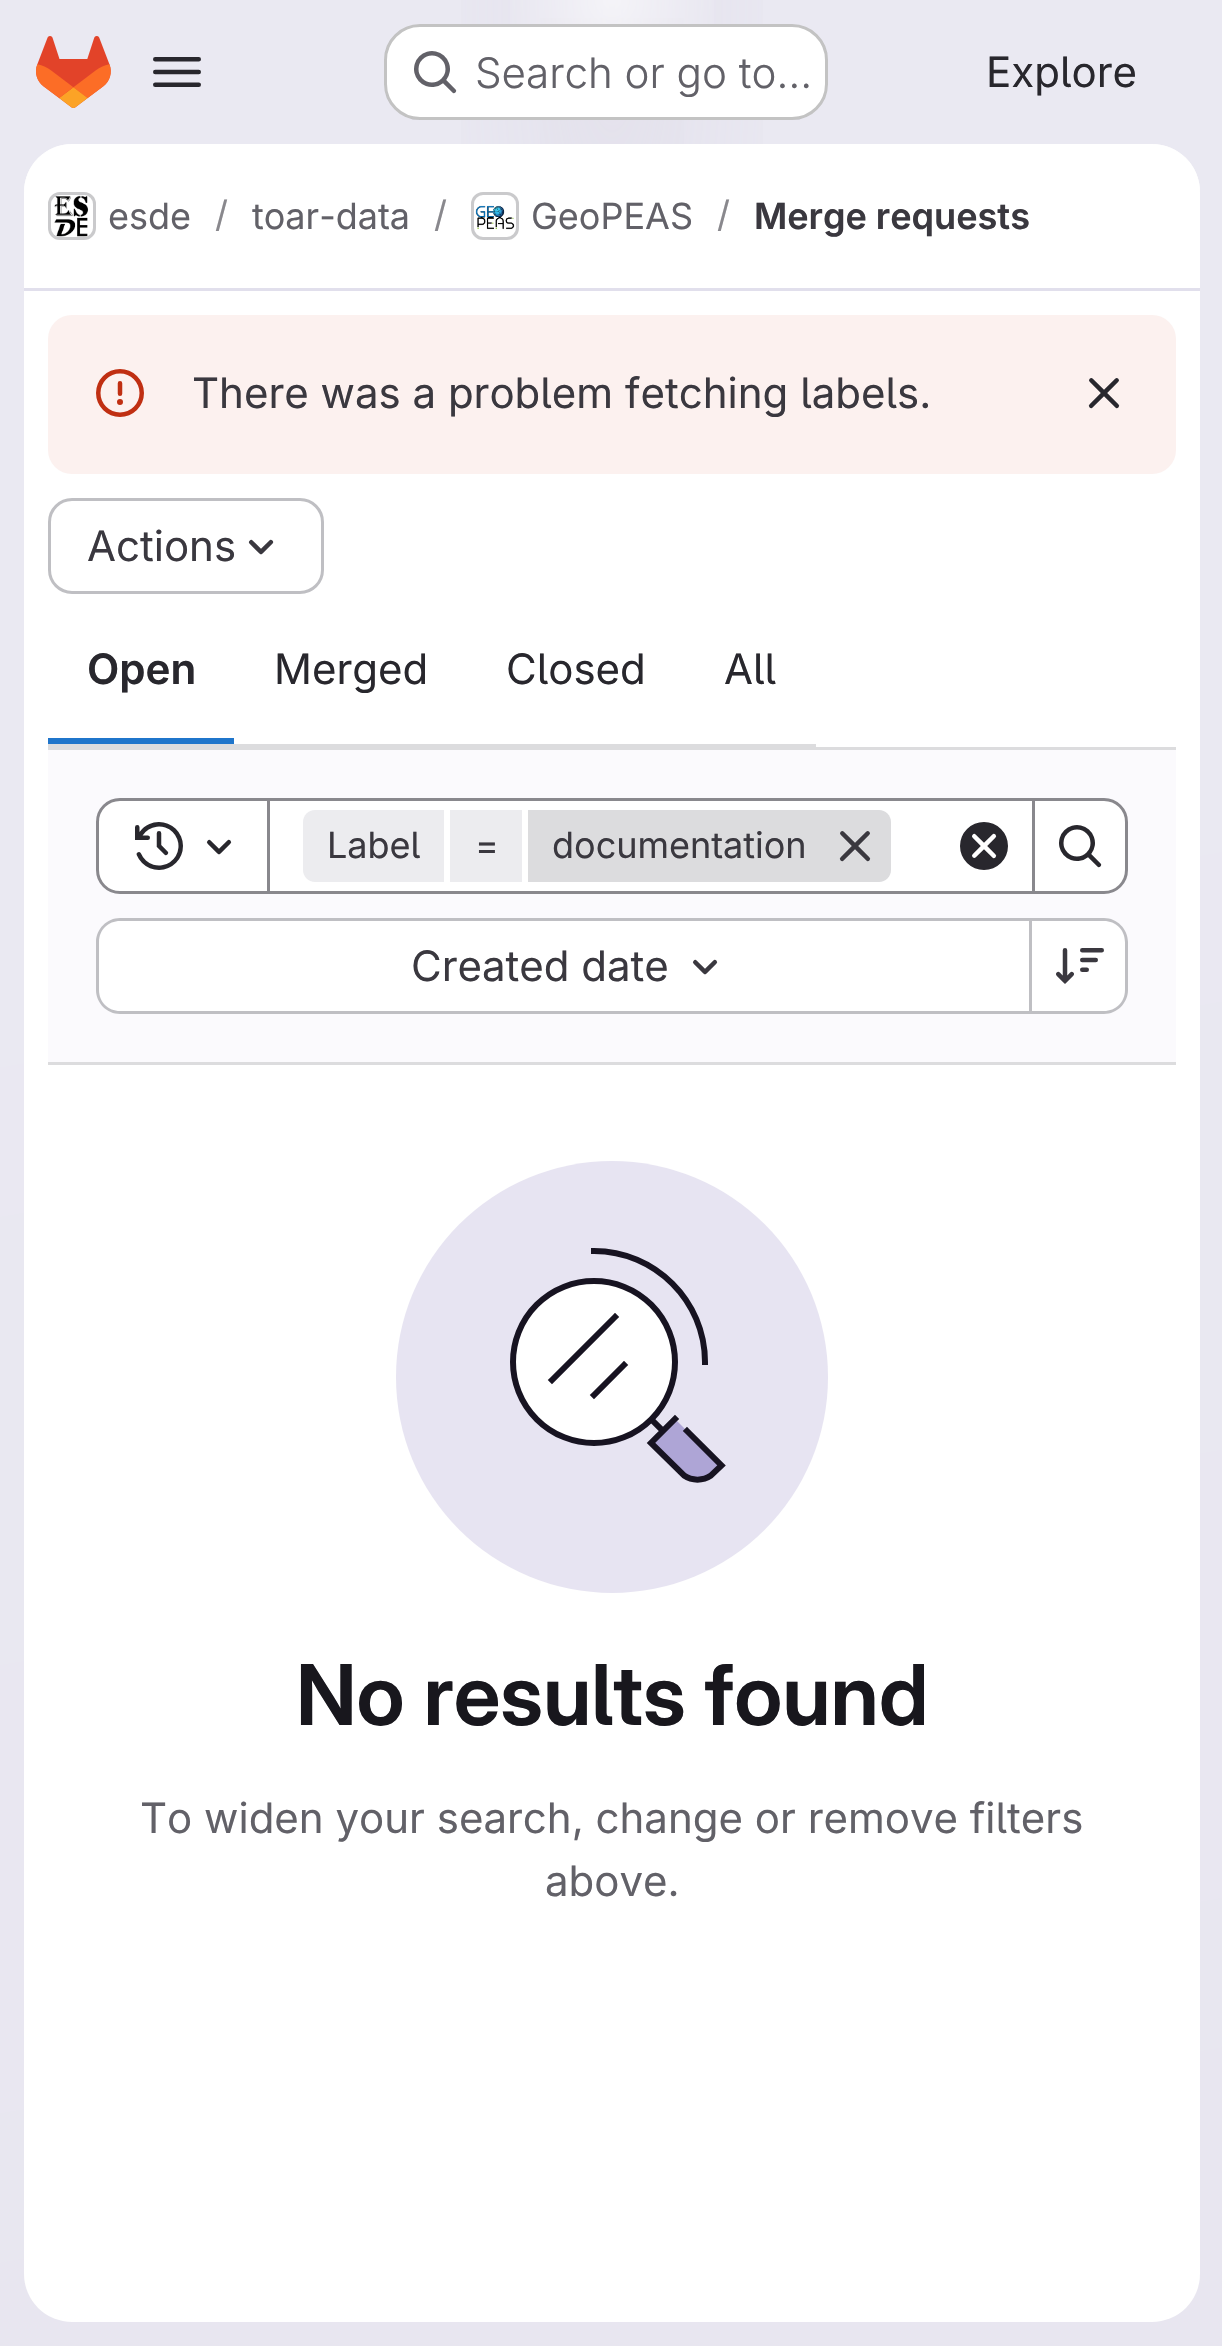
#include "include/core/SkBlurTypes.h"
#include "include/core/SkCanvas.h"
#include "include/core/SkData.h"
#include "include/core/SkFont.h"
#include "include/core/SkFontMgr.h"
#include "include/core/SkImage.h"
#include "include/core/SkMaskFilter.h"
#include "include/core/SkPaint.h"
#include "include/core/SkPathBuilder.h"
#include "include/core/SkTextBlob.h"
#include "include/effects/SkDashPathEffect.h"
#include "include/effects/SkGradientShader.h"
#include "include/utils/SkParsePath.h"

extern sk_sp<SkFontMgr> fontMgr;

static SkFont font(const char* family, int weight, float size, bool italic = false) {
    SkFontStyle style(weight, SkFontStyle::kNormal_Width,
        italic ? SkFontStyle::kItalic_Slant : SkFontStyle::kUpright_Slant);
    SkFont result(fontMgr->matchFamilyStyle(family, style), size);
    result.setSubpixel(true);
    return result;
}

static void drawLabel(SkCanvas* canvas, const char* s, float x, float y, const SkFont& font, SkColor color) {
    SkPaint ink(SkColor4f::FromColor(color));
    ink.setAntiAlias(true);
    canvas->drawString(s, x, y, font, ink);
}

static void fillRect(SkCanvas* canvas, float x, float y, float w, float h, SkColor color) {
    SkPaint ink(SkColor4f::FromColor(color));
    ink.setAntiAlias(true);
    canvas->drawRect(SkRect::MakeXYWH(x, y, w, h), ink);
}

static void fillRRect(SkCanvas* canvas, float x, float y, float w, float h, float radius, SkColor color) {
    SkPaint ink(SkColor4f::FromColor(color));
    ink.setAntiAlias(true);
    canvas->drawRoundRect(SkRect::MakeXYWH(x, y, w, h), radius, radius, ink);
}

static void drawPhoto(SkCanvas* canvas, const char* path, float x, float y, float w, float h) {
    auto image = SkImages::DeferredFromEncodedData(SkData::MakeFromFileName(path));
    canvas->drawImageRect(image, SkRect::MakeXYWH(x, y, w, h), SkSamplingOptions());
}

static SkPath parsePath(const char* data, bool evenOdd = false) {
    SkPath result = *SkParsePath::FromSVGString(data);
    if (evenOdd) result.setFillType(SkPathFillType::kEvenOdd);
    return result;
}

void draw(SkCanvas* canvas) {
    SkPaint paint;
    paint.setAntiAlias(true);
    canvas->clear(0xFFFFFFFF);
    {
        const SkColor colors[] = {0xFFE8E6F0, 0xFFEAE9F2};
        const float stops[] = {0, 0.7f};
        const SkPoint ends[] = {{831, 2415}, {393, -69}};
        paint.setShader(SkGradientShader::MakeLinear(ends, colors, stops, 2, SkTileMode::kClamp));
        paint.setAlpha(255);
    }
    canvas->drawRect(SkRect::MakeXYWH(0, 0, 1222, 2346), paint);
    {
        const SkColor colors[] = {0xFFE4E2ED, 0x00E4E2ED};
        const float stops[] = {0, 0.34f};
        SkMatrix m = SkMatrix::Translate(612, 0).preScale(612, 2346);
        paint.setShader(SkGradientShader::MakeRadial({0, 0}, 1, colors, stops, 2, SkTileMode::kClamp, 0, &m));
        paint.setAlpha(255);
    }
    canvas->drawRect(SkRect::MakeXYWH(461, 0, 302, 144), paint);
    {
        const SkColor colors[] = {0xFFE4E2EC, 0x00E4E2EC};
        const float stops[] = {0, 0.25f};
        SkMatrix m = SkMatrix::Translate(612, 0).preScale(612, 2346);
        paint.setShader(SkGradientShader::MakeRadial({0, 0}, 1, colors, stops, 2, SkTileMode::kClamp, 0, &m));
        paint.setAlpha(255);
    }
    canvas->drawRect(SkRect::MakeXYWH(540, 18, 144, 126), paint);
    {
        const SkColor colors[] = {0x99FFFFFF, 0x00FFFFFF};
        const float stops[] = {0, 0.05f};
        paint.setShader(SkGradientShader::MakeRadial({612, 0}, 2425, colors, stops, 2, SkTileMode::kClamp));
        paint.setAlpha(255);
    }
    canvas->drawRect(SkRect::MakeXYWH(510, 0, 204, 24), paint);
    drawPhoto(canvas, "assets/img1.png", 36, 36, 75, 72);
    drawPhoto(canvas, "assets/img2.png", 153, 57, 48, 30);
    fillRRect(canvas, 384, 24, 444, 96, 36, 0xFFFFFFFF);
    paint.setStroke(true);
    paint.setStrokeWidth(3);
    paint.setShader(nullptr);
    paint.setColor(0x3D050506);
    canvas->drawRoundRect(SkRect::MakeXYWH(385.5f, 25.5f, 441, 93), 34.5f, 34.5f, paint);
    drawPhoto(canvas, "assets/img3.png", 414, 51, 43, 43);
    SkFont font1 = font("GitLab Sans", 300, 42);
    drawLabel(canvas, "Search or go to…", 475, 88, font1, 0xFF626168);
    SkFont font2 = font("GitLab Sans", 400, 42);
    drawLabel(canvas, "Explore", 986, 87, font2, 0xFF28272D);
    fillRRect(canvas, 24, 144, 1176, 2178, 48, 0xFFFFFFFF);
    paint.setStroke(false);
    paint.setColor(0xFFFFFFFF);
    canvas->drawPath(parsePath("M72 144H1152C1178.5 144 1200 165.5 1200 192V291H24V192C24 165.5 45.5 144 72 144Z"), paint);
    fillRect(canvas, 24, 288, 1176, 3, 0xFFE1DFEC);
    paint.setStroke(true);
    paint.setColor(0xFFDCDCDE);
    canvas->drawRoundRect(SkRect::MakeXYWH(49.5f, 193.5f, 45, 45), 10.5f, 10.5f, paint);
    drawPhoto(canvas, "assets/img4.png", 54, 195, 35, 42);
    paint.setColor(0x14050506);
    canvas->drawRoundRect(SkRect::MakeXYWH(49.5f, 193.5f, 45, 45), 10.5f, 10.5f, paint);
    SkFont font3 = font("GitLab Sans", 400, 36);
    drawLabel(canvas, "esde", 108, 229, font3, 0xFF626168);
    drawLabel(canvas, "/", 215, 227, font3, 0xFF89888D);
    drawLabel(canvas, "toar-data", 252, 229, font3, 0xFF626168);
    drawLabel(canvas, "/", 434, 227, font3, 0xFF89888D);
    paint.setColor(0xFFDCDCDE);
    canvas->drawRoundRect(SkRect::MakeXYWH(472.5f, 193.5f, 45, 45), 10.5f, 10.5f, paint);
    drawPhoto(canvas, "assets/img5.png", 475, 205, 40, 25);
    paint.setColor(0x14050506);
    canvas->drawRoundRect(SkRect::MakeXYWH(472.5f, 193.5f, 45, 45), 10.5f, 10.5f, paint);
    drawLabel(canvas, "GeoPEAS", 531, 229, font3, 0xFF626168);
    drawLabel(canvas, "/", 717, 227, font3, 0xFF89888D);
    SkFont font4 = font("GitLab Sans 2", 600, 36);
    drawLabel(canvas, "Merge requests", 754, 229, font4, 0xFF3A383F);
    fillRRect(canvas, 48, 315, 1128, 159, 24, 0xFFFCF1EF);
    drawPhoto(canvas, "assets/img6.png", 96, 369, 48, 48);
    drawLabel(canvas, "There was a problem fetching labels.", 192, 408, font2, 0xFF3A383F);
    drawPhoto(canvas, "assets/img7.png", 1088, 378, 32, 31);
    fillRect(canvas, 48, 747, 1128, 3, 0xFFDCDCDE);
    paint.setColor(0xFFBFBFC3);
    canvas->drawRoundRect(SkRect::MakeXYWH(49.5f, 499.5f, 273, 93), 22.5f, 22.5f, paint);
    drawLabel(canvas, "Actions", 87, 561, font2, 0xFF3A383F);
    drawPhoto(canvas, "assets/img8.png", 248, 539, 26, 16);
    fillRect(canvas, 48, 744, 768, 3, 0xFFDCDCDE);
    SkFont font5 = font("GitLab Sans 2", 600, 42);
    drawLabel(canvas, "Open", 87, 684, font5, 0xFF28272D);
    fillRect(canvas, 48, 738, 186, 6, 0xFF1F75CB);
    drawLabel(canvas, "Merged", 274, 684, font2, 0xFF28272D);
    drawLabel(canvas, "Closed", 506, 684, font2, 0xFF28272D);
    drawLabel(canvas, "All", 724, 684, font2, 0xFF28272D);
    fillRect(canvas, 48, 750, 1128, 312, 0xFFFBFAFD);
    fillRect(canvas, 48, 1062, 1128, 3, 0xFFDCDCDE);
    paint.setStroke(false);
    paint.setColor(0xFFFFFFFF);
    canvas->drawRect(SkRect::MakeXYWH(268.5f, 799.5f, 765, 93), paint);
    paint.setStroke(true);
    paint.setColor(0xFF89888D);
    canvas->drawRect(SkRect::MakeXYWH(268.5f, 799.5f, 765, 93), paint);
    paint.setStroke(false);
    paint.setColor(0xFFFFFFFF);
    canvas->drawPath(parsePath("M120 799.5H268.5V892.5H120C107.5 892.5 97.5 882.5 97.5 870V822C97.5 809.5 107.5 799.5 120 799.5Z"), paint);
    paint.setStroke(true);
    paint.setColor(0xFF89888D);
    canvas->drawPath(parsePath("M120 799.5H268.5V892.5H120C107.5 892.5 97.5 882.5 97.5 870V822C97.5 809.5 107.5 799.5 120 799.5Z"), paint);
    drawPhoto(canvas, "assets/img9.png", 135, 822, 48, 48);
    drawPhoto(canvas, "assets/img10.png", 206, 839, 26, 16);
    paint.setStroke(false);
    paint.setColor(0xFFECECEF);
    canvas->drawPath(parsePath("M315 810H444V882H315C308.5 882 303 876.5 303 870V822C303 815.5 308.5 810 315 810Z"), paint);
    drawLabel(canvas, "Label", 327, 858, font3, 0xFF3A383F);
    fillRect(canvas, 450, 810, 72, 72, 0xFFECECEF);
    drawLabel(canvas, "=", 475, 858, font3, 0xFF3A383F);
    paint.setColor(0xFFDCDCDE);
    canvas->drawPath(parsePath("M528 810H879C885.5 810 891 815.5 891 822V870C891 876.5 885.5 882 879 882H528Z"), paint);
    drawLabel(canvas, "documentation", 552, 858, font3, 0xFF3A383F);
    drawPhoto(canvas, "assets/img11.png", 839, 831, 32, 31);
    drawPhoto(canvas, "assets/img12.png", 960, 822, 48, 48);
    paint.setColor(0xFFFFFFFF);
    canvas->drawPath(parsePath("M1033.5 799.5H1104C1116.5 799.5 1126.5 809.5 1126.5 822V870C1126.5 882.5 1116.5 892.5 1104 892.5H1033.5Z"), paint);
    paint.setStroke(true);
    paint.setColor(0xFF89888D);
    canvas->drawPath(parsePath("M1033.5 799.5H1104C1116.5 799.5 1126.5 809.5 1126.5 822V870C1126.5 882.5 1116.5 892.5 1104 892.5H1033.5Z"), paint);
    drawPhoto(canvas, "assets/img13.png", 1059, 825, 43, 43);
    paint.setStroke(false);
    paint.setColor(0xFFFFFFFF);
    canvas->drawPath(parsePath("M120 921H1029V1011H120C108.5 1011 99 1001.5 99 990V942C99 930.5 108.5 921 120 921Z"), paint);
    paint.setColor(0xFFBFBFC3);
    canvas->drawPath(parsePath("M120 918H1029V1014H120C107 1014 96 1003 96 990V942C96 929 107 918 120 918ZM120 921H1029V1011H120C108 1011 99 1002 99 990V942C99 930 108 921 120 921Z", true), paint);
    drawLabel(canvas, "Created date", 411, 981, font2, 0xFF3A383F);
    drawPhoto(canvas, "assets/img14.png", 692, 959, 26, 16);
    paint.setColor(0xFFFFFFFF);
    canvas->drawPath(parsePath("M1032 921H1104C1115.5 921 1125 930.5 1125 942V990C1125 1001.5 1115.5 1011 1104 1011H1032Z"), paint);
    paint.setColor(0xFFBFBFC3);
    canvas->drawPath(parsePath("M1032 918H1104C1117 918 1128 929 1128 942V990C1128 1003 1117 1014 1104 1014H1032ZM1032 921H1104C1116 921 1125 930 1125 942V990C1125 1002 1116 1011 1104 1011H1032Z", true), paint);
    fillRect(canvas, 1029, 918, 3, 96, 0xFFBFBFC3);
    drawPhoto(canvas, "assets/img15.png", 1056, 948, 48, 36);
    paint.setColor(0xFFE7E4F2);
    canvas->drawCircle(612, 1377, 216, paint);
    paint.setColor(0xFFAEA5D6);
    canvas->drawPath(parsePath("M675 1419L651 1443L684 1476C692 1481 703 1481 711 1476L722 1466Z"), paint);
    paint.setStroke(true);
    paint.setStrokeWidth(6);
    paint.setStrokeCap(SkPaint::kSquare_Cap);
    paint.setColor(0xFF171321);
    canvas->drawPath(parsePath("M675 1419L651 1443L684 1475.5C692 1481 703 1481 711 1475.5L721.5 1465.5L687 1431M651 1419L660 1428"), paint);
    paint.setStroke(false);
    paint.setColor(0xFFFFFFFF);
    canvas->drawCircle(594, 1362, 81, paint);
    paint.setStroke(true);
    paint.setStrokeCap(SkPaint::kButt_Cap);
    paint.setColor(0xFF171321);
    canvas->drawCircle(594, 1362, 81, paint);
    paint.setStrokeCap(SkPaint::kSquare_Cap);
    canvas->drawPath(parsePath("M594 1395L624 1365M552 1380L615 1317M705 1362C705 1301 655 1251 594 1251"), paint);
    SkFont font6 = font("GitLab Sans", 600, 84);
    drawLabel(canvas, "No results found", 296, 1725, font6, 0xFF18171D);
    drawLabel(canvas, "To widen your search, change or remove filters", 140, 1833, font2, 0xFF626168);
    drawLabel(canvas, "above.", 545, 1896, font2, 0xFF626168);
}
